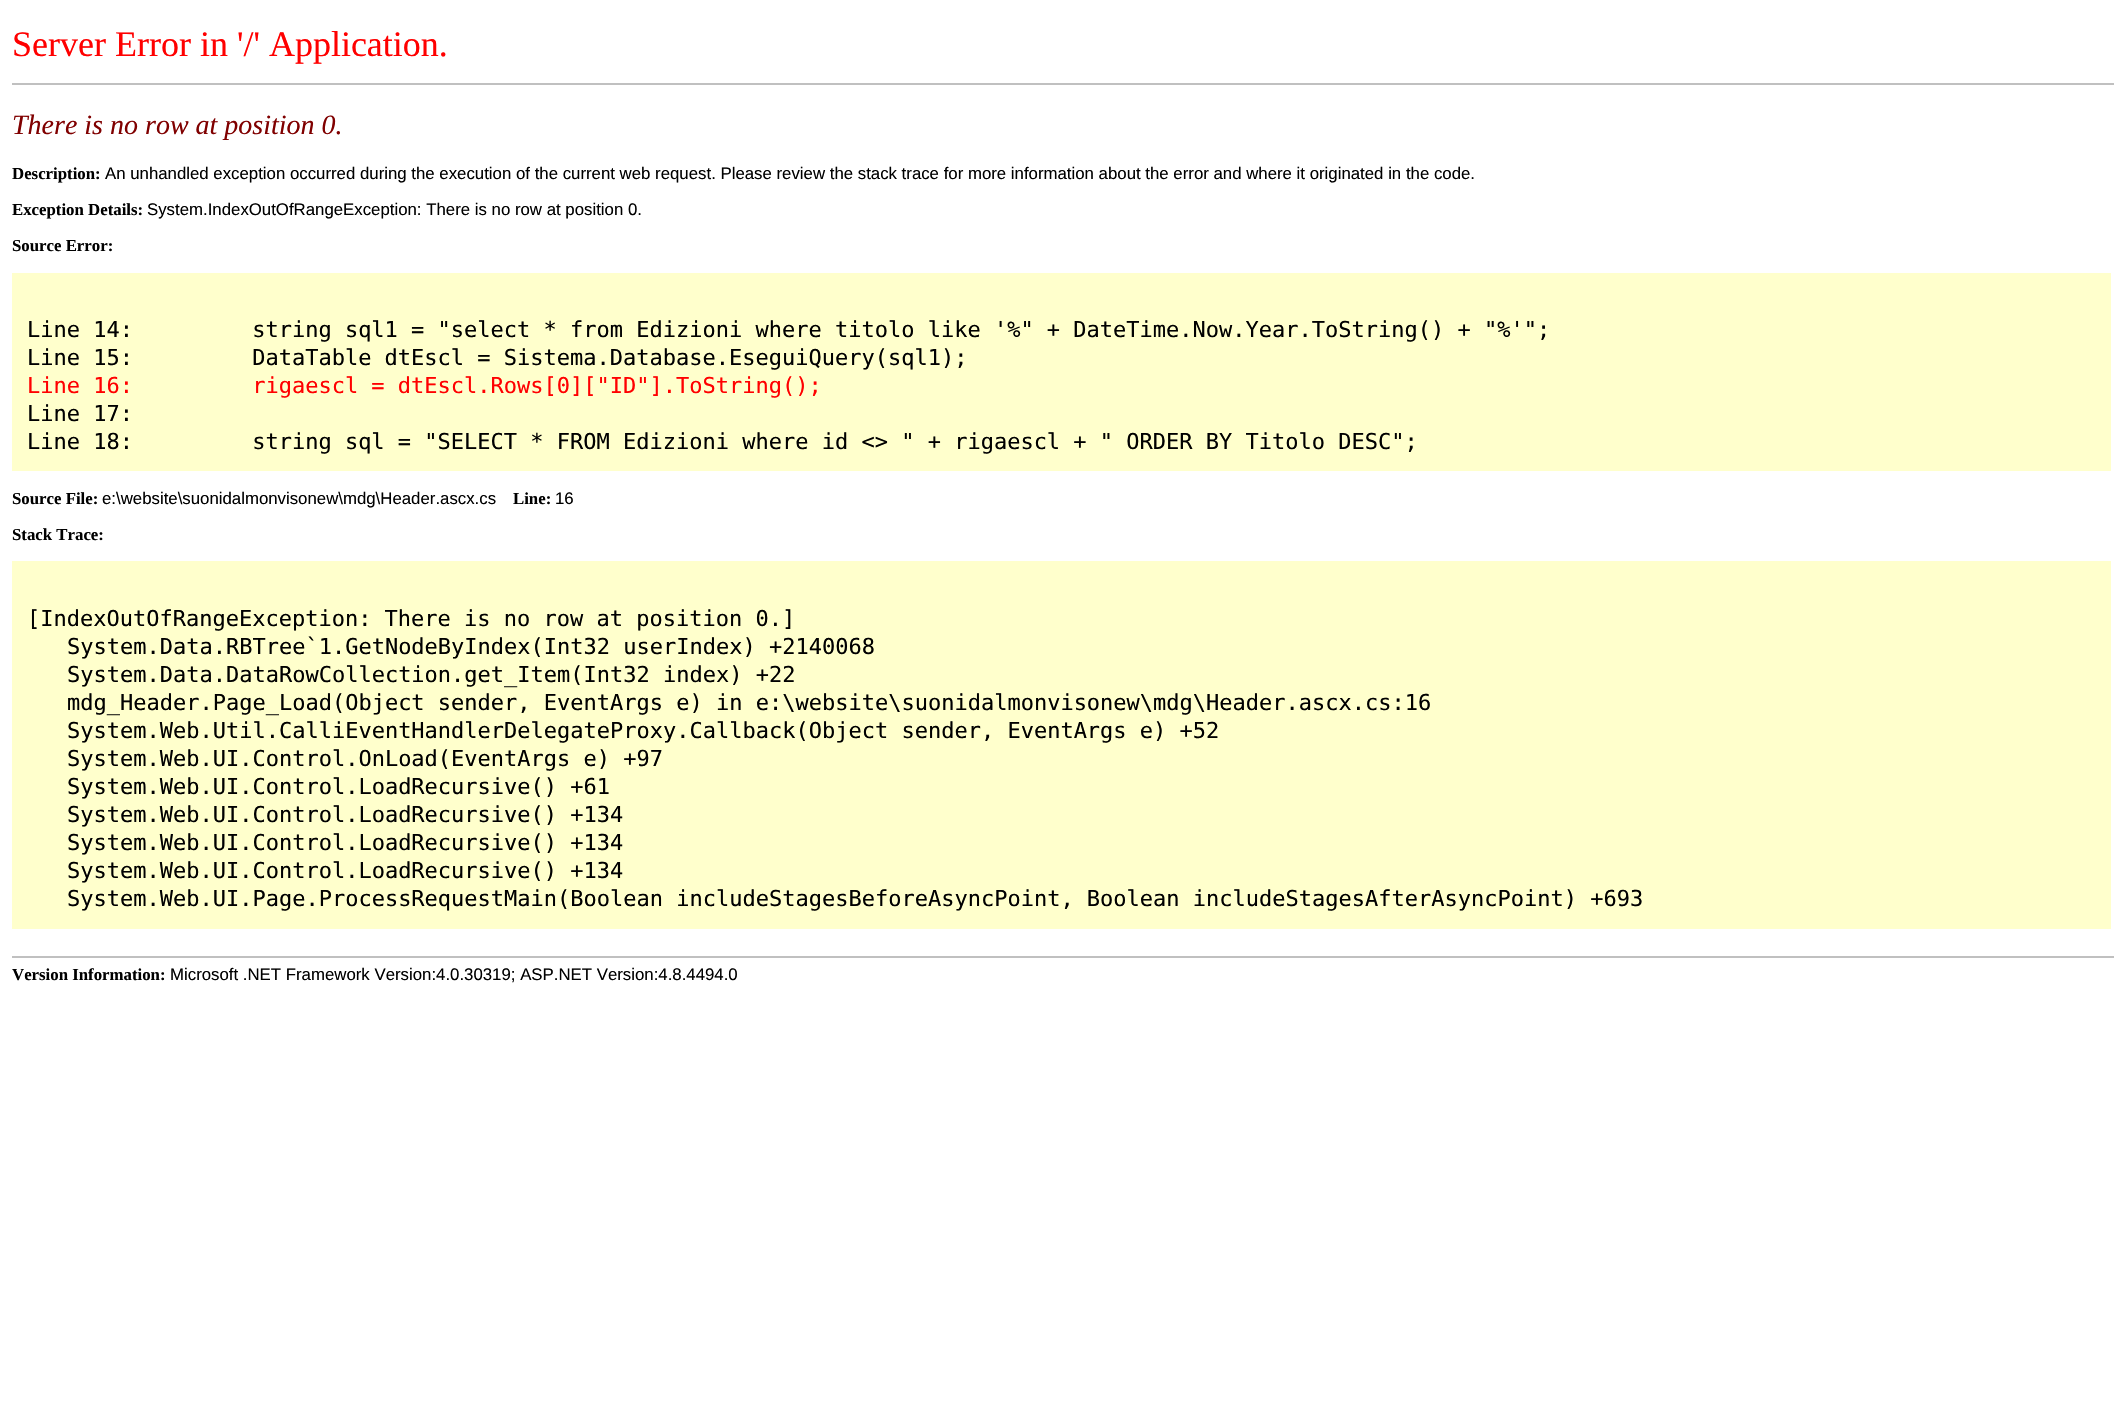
#include "include/core/SkBlurTypes.h"
#include "include/core/SkCanvas.h"
#include "include/core/SkData.h"
#include "include/core/SkFont.h"
#include "include/core/SkFontMgr.h"
#include "include/core/SkImage.h"
#include "include/core/SkMaskFilter.h"
#include "include/core/SkPaint.h"
#include "include/core/SkPathBuilder.h"
#include "include/core/SkTextBlob.h"
#include "include/effects/SkDashPathEffect.h"
#include "include/effects/SkGradientShader.h"
#include "include/utils/SkParsePath.h"

extern sk_sp<SkFontMgr> fontMgr;

static SkFont font(const char* family, int weight, float size, bool italic = false) {
    SkFontStyle style(weight, SkFontStyle::kNormal_Width,
        italic ? SkFontStyle::kItalic_Slant : SkFontStyle::kUpright_Slant);
    SkFont result(fontMgr->matchFamilyStyle(family, style), size);
    result.setSubpixel(true);
    return result;
}

static void drawLabel(SkCanvas* canvas, const char* s, float x, float y, const SkFont& font, SkColor color) {
    SkPaint ink(SkColor4f::FromColor(color));
    ink.setAntiAlias(true);
    canvas->drawString(s, x, y, font, ink);
}

static void fillRect(SkCanvas* canvas, float x, float y, float w, float h, SkColor color) {
    SkPaint ink(SkColor4f::FromColor(color));
    ink.setAntiAlias(true);
    canvas->drawRect(SkRect::MakeXYWH(x, y, w, h), ink);
}

void draw(SkCanvas* canvas) {
    SkPaint paint;
    paint.setAntiAlias(true);
    canvas->clear(0xFFFFFFFF);
    SkFont font1 = font("Liberation Serif", 400, 36);
    drawLabel(canvas, "Server Error in '/' Application.", 12, 56, font1, 0xFFFF0000);
    fillRect(canvas, 12, 83, 2102, 2, 0xFFC0C0C0);
    SkFont font2 = font("Liberation Serif", 400, 28, true);
    drawLabel(canvas, "There is no row at position 0.", 12, 134, font2, 0xFF800000);
    SkFont font3 = font("Liberation Serif", 700, 16.8f);
    drawLabel(canvas, "Description:", 12, 179, font3, 0xFF000000);
    SkFont font4 = font("Liberation Sans", 400, 16.8f);
    drawLabel(canvas, "An unhandled exception occurred during the execution of the current web request. Please review the stack trace for more information about the error and where it originated in the code.", 105, 179, font4, 0xFF000000);
    drawLabel(canvas, "Exception Details:", 12, 215, font3, 0xFF000000);
    drawLabel(canvas, "System.IndexOutOfRangeException: There is no row at position 0.", 147, 215, font4, 0xFF000000);
    drawLabel(canvas, "Source Error:", 12, 251, font3, 0xFF000000);
    fillRect(canvas, 12, 273, 2099, 198, 0xFFFFFFCC);
    SkFont font5 = font("DejaVu Sans Mono", 400, 22);
    drawLabel(canvas, "Line 14:         string sql1 = \"select * from Edizioni where titolo like '%\" + DateTime.Now.Year.ToString() + \"%'\";", 27, 337, font5, 0xFF000000);
    drawLabel(canvas, "Line 15:         DataTable dtEscl = Sistema.Database.EseguiQuery(sql1);", 27, 365, font5, 0xFF000000);
    drawLabel(canvas, "Line 16:         rigaescl = dtEscl.Rows[0][\"ID\"].ToString();", 27, 393, font5, 0xFFFF0000);
    drawLabel(canvas, "Line 17:", 27, 421, font5, 0xFF000000);
    drawLabel(canvas, "Line 18:         string sql = \"SELECT * FROM Edizioni where id <> \" + rigaescl + \" ORDER BY Titolo DESC\";", 27, 449, font5, 0xFF000000);
    drawLabel(canvas, "Source File:", 12, 504, font3, 0xFF000000);
    drawLabel(canvas, "e:\\website\\suonidalmonvisonew\\mdg\\Header.ascx.cs", 102, 504, font4, 0xFF000000);
    drawLabel(canvas, "Line:", 513, 504, font3, 0xFF000000);
    drawLabel(canvas, "16", 555, 504, font4, 0xFF000000);
    drawLabel(canvas, "Stack Trace:", 12, 540, font3, 0xFF000000);
    fillRect(canvas, 12, 561, 2099, 368, 0xFFFFFFCC);
    drawLabel(canvas, "[IndexOutOfRangeException: There is no row at position 0.]", 27, 626, font5, 0xFF000000);
    drawLabel(canvas, "System.Data.RBTree`1.GetNodeByIndex(Int32 userIndex) +2140068", 67, 654, font5, 0xFF000000);
    drawLabel(canvas, "System.Data.DataRowCollection.get_Item(Int32 index) +22", 67, 682, font5, 0xFF000000);
    drawLabel(canvas, "mdg_Header.Page_Load(Object sender, EventArgs e) in e:\\website\\suonidalmonvisonew\\mdg\\Header.ascx.cs:16", 67, 710, font5, 0xFF000000);
    drawLabel(canvas, "System.Web.Util.CalliEventHandlerDelegateProxy.Callback(Object sender, EventArgs e) +52", 67, 738, font5, 0xFF000000);
    drawLabel(canvas, "System.Web.UI.Control.OnLoad(EventArgs e) +97", 67, 766, font5, 0xFF000000);
    drawLabel(canvas, "System.Web.UI.Control.LoadRecursive() +61", 67, 794, font5, 0xFF000000);
    drawLabel(canvas, "System.Web.UI.Control.LoadRecursive() +134", 67, 822, font5, 0xFF000000);
    drawLabel(canvas, "System.Web.UI.Control.LoadRecursive() +134", 67, 850, font5, 0xFF000000);
    drawLabel(canvas, "System.Web.UI.Control.LoadRecursive() +134", 67, 878, font5, 0xFF000000);
    drawLabel(canvas, "System.Web.UI.Page.ProcessRequestMain(Boolean includeStagesBeforeAsyncPoint, Boolean includeStagesAfterAsyncPoint) +693", 67, 906, font5, 0xFF000000);
    fillRect(canvas, 12, 956, 2102, 2, 0xFFC0C0C0);
    drawLabel(canvas, "Version Information:", 12, 980, font3, 0xFF000000);
    drawLabel(canvas, "Microsoft .NET Framework Version:4.0.30319; ASP.NET Version:4.8.4494.0", 170, 980, font4, 0xFF000000);
}
